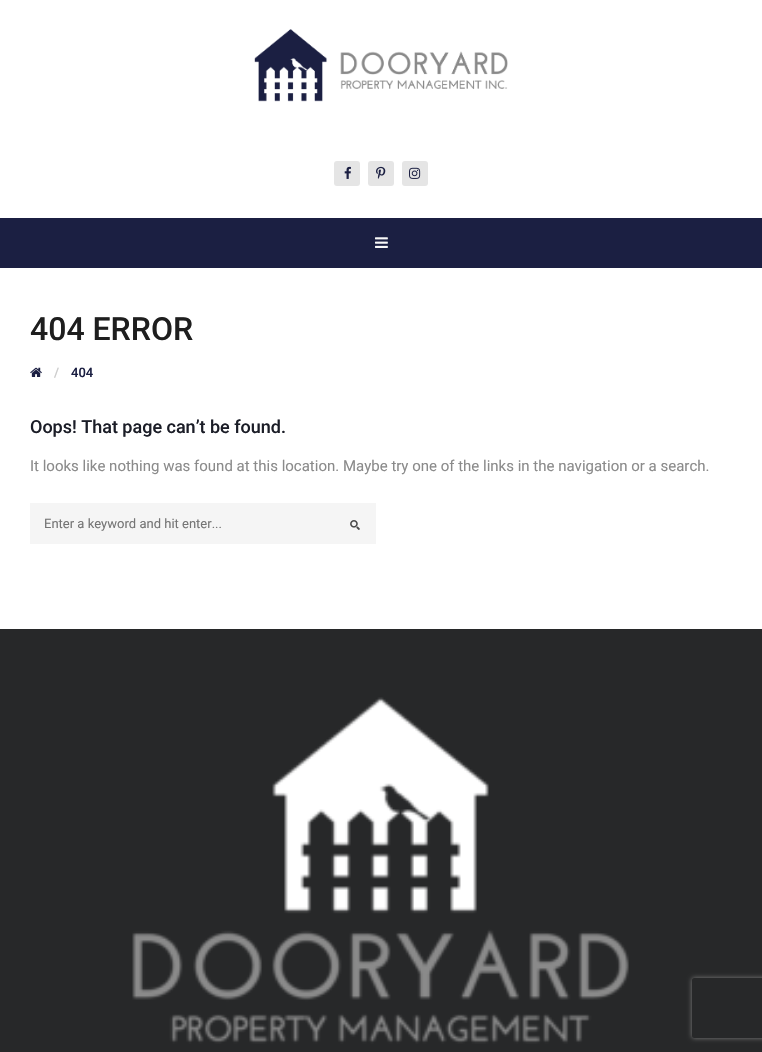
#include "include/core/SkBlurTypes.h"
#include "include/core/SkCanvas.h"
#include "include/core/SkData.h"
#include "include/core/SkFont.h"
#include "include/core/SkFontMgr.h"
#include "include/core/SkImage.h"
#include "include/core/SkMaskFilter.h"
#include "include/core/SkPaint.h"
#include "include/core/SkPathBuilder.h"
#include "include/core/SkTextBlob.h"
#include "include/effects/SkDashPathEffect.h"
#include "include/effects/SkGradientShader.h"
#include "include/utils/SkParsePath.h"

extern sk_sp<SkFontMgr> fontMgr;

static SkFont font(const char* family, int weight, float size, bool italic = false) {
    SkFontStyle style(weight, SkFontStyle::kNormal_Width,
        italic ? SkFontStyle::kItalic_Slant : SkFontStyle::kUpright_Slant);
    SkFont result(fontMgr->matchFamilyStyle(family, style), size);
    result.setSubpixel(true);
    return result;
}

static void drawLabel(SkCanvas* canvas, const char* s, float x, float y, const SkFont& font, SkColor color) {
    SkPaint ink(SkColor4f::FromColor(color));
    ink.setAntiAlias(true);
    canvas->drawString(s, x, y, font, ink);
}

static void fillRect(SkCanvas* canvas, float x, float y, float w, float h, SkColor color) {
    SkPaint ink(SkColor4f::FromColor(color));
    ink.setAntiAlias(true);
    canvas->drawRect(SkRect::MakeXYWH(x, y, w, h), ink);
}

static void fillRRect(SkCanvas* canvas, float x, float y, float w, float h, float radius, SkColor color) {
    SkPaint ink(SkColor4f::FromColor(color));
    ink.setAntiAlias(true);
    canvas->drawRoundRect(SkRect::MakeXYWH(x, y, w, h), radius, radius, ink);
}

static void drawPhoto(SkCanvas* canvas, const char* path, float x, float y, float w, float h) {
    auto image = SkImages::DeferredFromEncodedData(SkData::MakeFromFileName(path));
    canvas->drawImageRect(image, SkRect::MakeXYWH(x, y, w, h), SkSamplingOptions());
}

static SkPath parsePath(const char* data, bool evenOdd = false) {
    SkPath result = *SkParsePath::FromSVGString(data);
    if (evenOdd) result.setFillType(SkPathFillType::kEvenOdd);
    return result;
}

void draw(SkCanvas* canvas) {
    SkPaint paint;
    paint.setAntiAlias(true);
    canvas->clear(0xFFFFFFFF);
    drawPhoto(canvas, "assets/img1.png", 254, 29, 254, 73);
    fillRRect(canvas, 334, 161, 26, 25, 3, 0xFFE5E5E5);
    drawPhoto(canvas, "assets/img2.png", 344, 166, 7, 13);
    fillRRect(canvas, 368, 161, 26, 25, 3, 0xFFE5E5E5);
    drawPhoto(canvas, "assets/img3.png", 376, 166, 10, 13);
    fillRRect(canvas, 402, 161, 26, 25, 3, 0xFFE5E5E5);
    drawPhoto(canvas, "assets/img4.png", 409, 167, 12, 12);
    fillRect(canvas, 0, 218, 762, 50, 0xFF1B1F42);
    drawPhoto(canvas, "assets/img5.png", 375, 237, 13, 11);
    SkFont font1 = font("Roboto", 500, 32);
    drawLabel(canvas, "404 ERROR", 30, 340, font1, 0xFF1E1E1E);
    drawPhoto(canvas, "assets/img6.png", 30, 367, 12, 10);
    SkFont font2 = font("Roboto", 500, 13);
    drawLabel(canvas, "/", 54, 377, font2, 0xFFCCCCCC);
    drawLabel(canvas, "404", 71, 377, font2, 0xFF1B1F42);
    SkFont font3 = font("Roboto", 500, 18);
    drawLabel(canvas, "Oops! That page can’t be found.", 30, 433, font3, 0xFF1B1D27);
    SkFont font4 = font("Roboto", 400, 15);
    drawLabel(canvas, "It looks like nothing was found at this location. Maybe try one of the links in the navigation or a search.", 30, 471, font4, 0xFF8B8B8B);
    fillRect(canvas, 30, 503, 346, 41, 0xFFF5F5F5);
    drawPhoto(canvas, "assets/img7.png", 350, 520, 10, 10);
    SkFont font5 = font("Roboto", 400, 13);
    drawLabel(canvas, "Enter a keyword and hit enter...", 44, 528, font5, 0xFF757575);
    fillRect(canvas, 0, 629, 762, 423, 0xFF272829);
    drawPhoto(canvas, "assets/img8.png", 132, 697, 497, 347);
    canvas->save();
    canvas->clipPath(parsePath("M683 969H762V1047H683ZM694 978H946C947 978 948 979 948 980V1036C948 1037 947 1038 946 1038H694C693 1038 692 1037 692 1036V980C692 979 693 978 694 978Z", true), true);
    paint.setColor(0xFF808080);
    paint.setMaskFilter(SkMaskFilter::MakeBlur(kNormal_SkBlurStyle, 2.5f));
    canvas->drawRoundRect(SkRect::MakeXYWH(692, 978, 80, 60), 2, 2, paint);
    paint.setMaskFilter(nullptr);
    canvas->restore();
}
